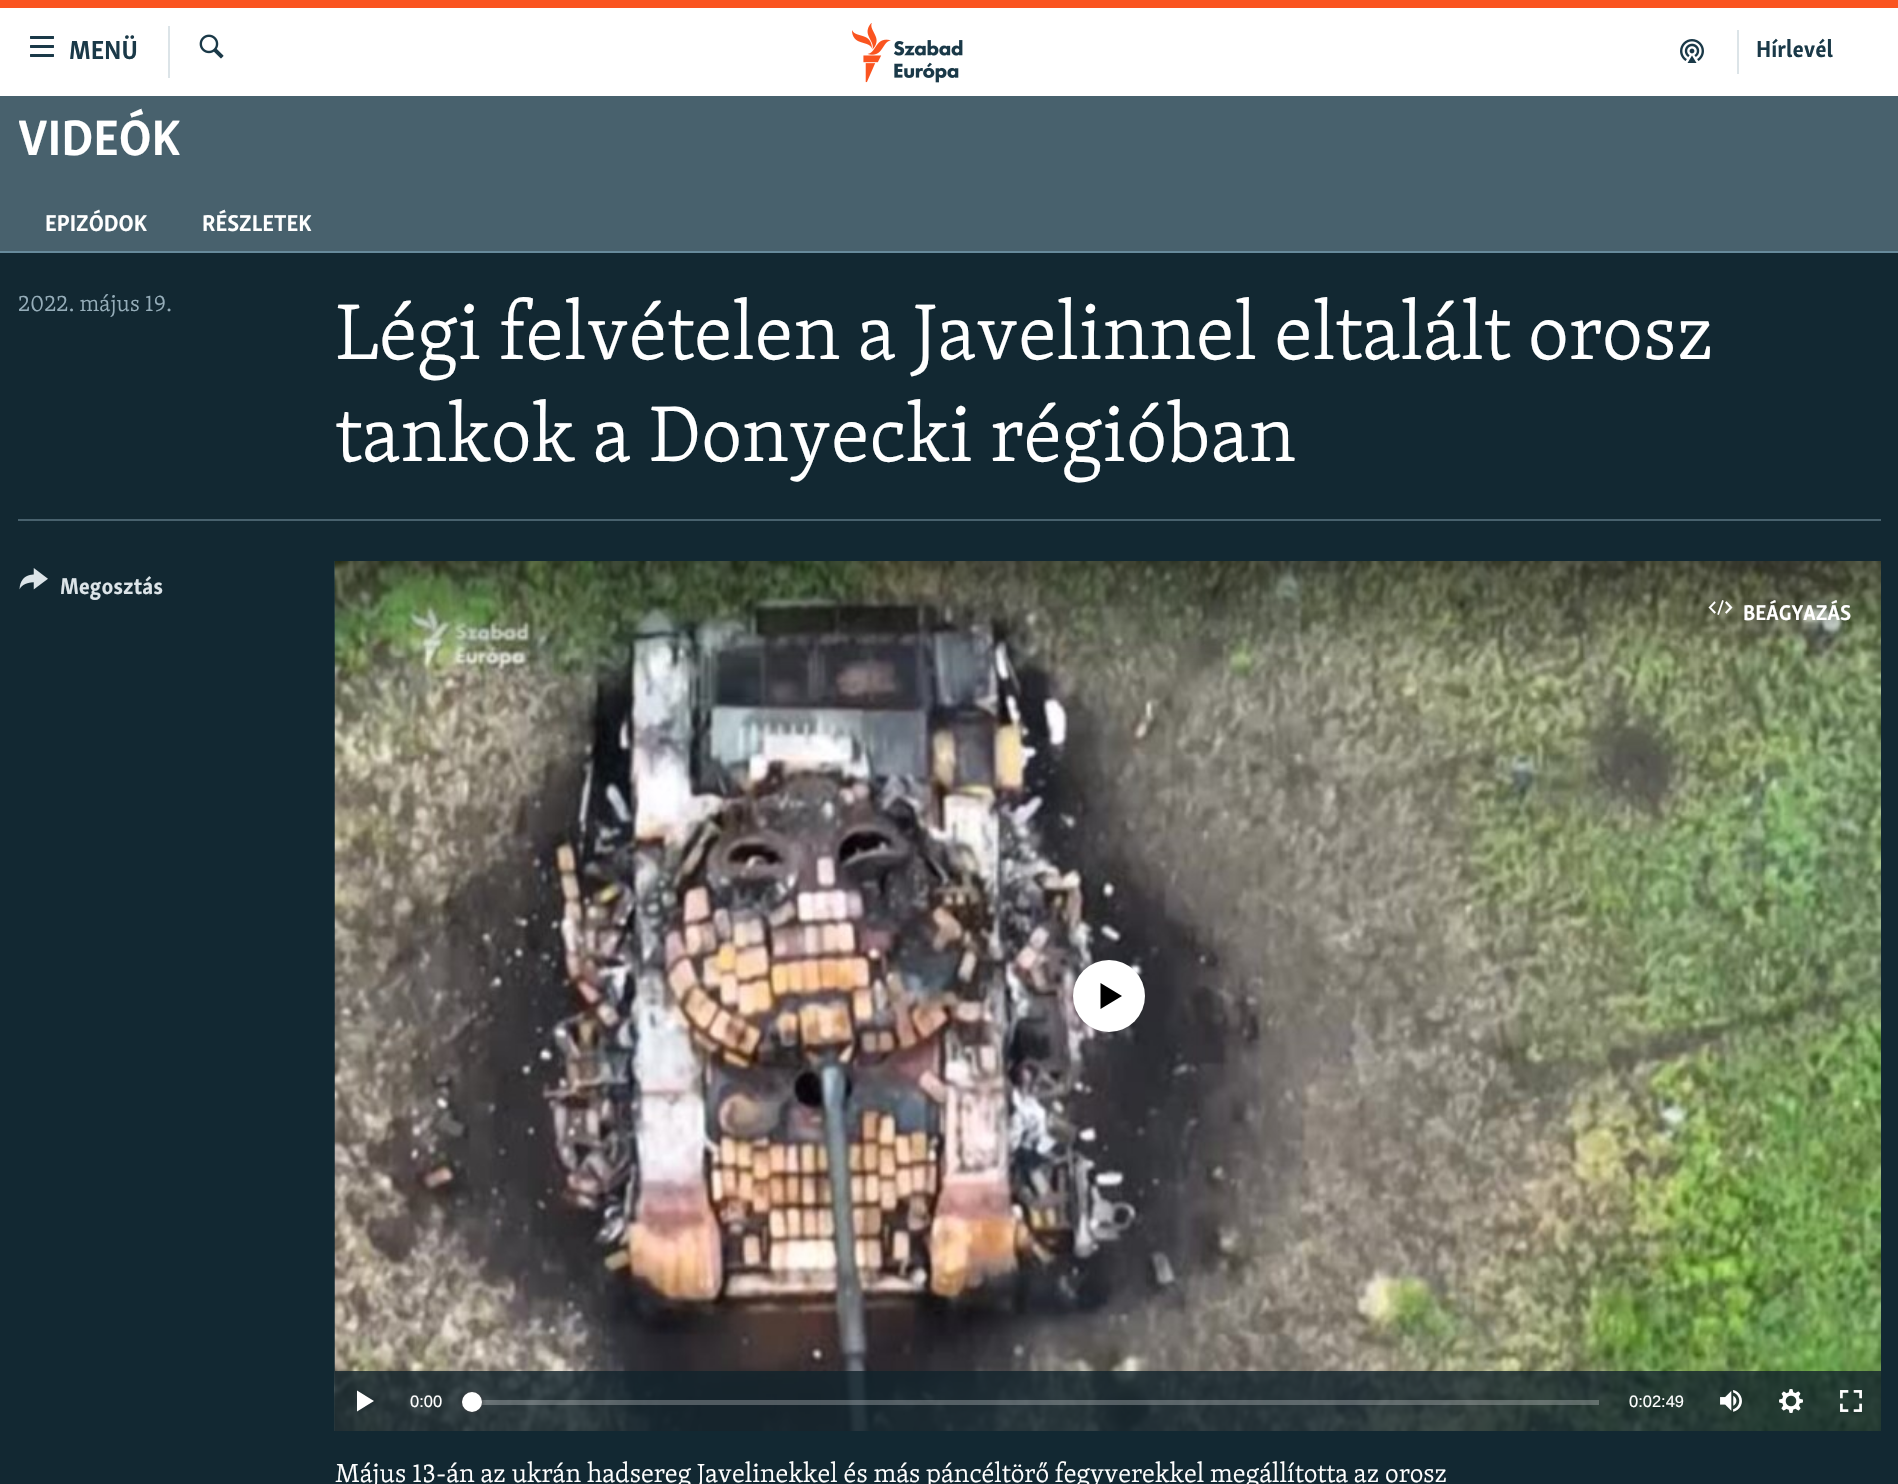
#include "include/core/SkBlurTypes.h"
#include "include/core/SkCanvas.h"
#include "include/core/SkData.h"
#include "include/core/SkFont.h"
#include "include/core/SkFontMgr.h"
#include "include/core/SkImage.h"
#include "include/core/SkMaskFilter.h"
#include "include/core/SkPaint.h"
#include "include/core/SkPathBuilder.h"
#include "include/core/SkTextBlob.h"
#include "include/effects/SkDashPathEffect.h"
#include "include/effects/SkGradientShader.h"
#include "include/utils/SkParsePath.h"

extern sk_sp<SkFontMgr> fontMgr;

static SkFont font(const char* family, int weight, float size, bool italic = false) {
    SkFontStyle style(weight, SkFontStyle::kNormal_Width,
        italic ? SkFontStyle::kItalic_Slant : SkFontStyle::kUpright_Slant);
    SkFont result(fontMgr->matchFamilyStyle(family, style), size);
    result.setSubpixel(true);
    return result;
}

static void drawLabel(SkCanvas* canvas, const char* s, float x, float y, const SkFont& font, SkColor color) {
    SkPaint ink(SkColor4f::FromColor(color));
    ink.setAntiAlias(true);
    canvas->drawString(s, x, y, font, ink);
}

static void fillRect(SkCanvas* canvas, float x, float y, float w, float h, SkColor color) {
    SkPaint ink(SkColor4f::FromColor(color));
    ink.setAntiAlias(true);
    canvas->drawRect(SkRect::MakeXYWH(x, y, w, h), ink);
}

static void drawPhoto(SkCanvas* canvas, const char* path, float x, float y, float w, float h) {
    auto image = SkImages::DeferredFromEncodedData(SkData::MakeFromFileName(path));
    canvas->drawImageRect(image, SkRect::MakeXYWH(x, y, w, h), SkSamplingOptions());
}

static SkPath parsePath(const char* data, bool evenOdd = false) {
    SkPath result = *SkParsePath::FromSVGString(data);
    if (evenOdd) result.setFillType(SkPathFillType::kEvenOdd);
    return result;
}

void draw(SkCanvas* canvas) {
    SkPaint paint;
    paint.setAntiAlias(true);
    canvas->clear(0xFFFFFFFF);
    fillRect(canvas, 0, 0, 1898, 8, 0xFFFA5420);
    drawPhoto(canvas, "assets/img1.png", 30, 36, 24, 21);
    SkFont font1 = font("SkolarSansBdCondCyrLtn", 700, 27);
    drawLabel(canvas, "MENÜ", 69, 59, font1, 0xFF1A3948);
    fillRect(canvas, 168, 26, 2, 52, 0xFFDCE4E8);
    drawPhoto(canvas, "assets/img2.png", 199, 34, 25, 25);
    drawPhoto(canvas, "assets/img3.png", 852, 23, 111, 60);
    fillRect(canvas, 1737, 30, 2, 44, 0xFFDCE4E8);
    drawPhoto(canvas, "assets/img4.png", 1680, 39, 24, 24);
    SkFont font2 = font("SkolarSansBdCondCyrLtn", 700, 24);
    drawLabel(canvas, "Hírlevél", 1756, 57, font2, 0xFF1A3948);
    fillRect(canvas, 0, 96, 1898, 155, 0xFF48616D);
    SkFont font3 = font("SkolarSansBdCondCyrLtn", 700, 51);
    drawLabel(canvas, "VIDEÓK", 18, 155, font3, 0xFFFFFFFF);
    SkFont font4 = font("SkolarSansBdCondCyrLtn", 700, 23.5f);
    drawLabel(canvas, "EPIZÓDOK", 45, 231, font4, 0xFFFFFFFF);
    drawLabel(canvas, "RÉSZLETEK", 202, 231, font4, 0xFFFFFFFF);
    fillRect(canvas, 0, 253, 1898, 1231, 0xFF122832);
    fillRect(canvas, 0, 251, 1898, 2, 0xFF678A9B);
    SkFont font5 = font("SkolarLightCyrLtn", 300, 23.5f);
    drawLabel(canvas, "2022. május 19.", 18, 311, font5, 0xFF95ADB9);
    SkFont font6 = font("SkolarLightCyrLtn", 300, 81);
    drawLabel(canvas, "Légi felvételen a Javelinnel eltalált orosz", 335, 359, font6, 0xFFFFFFFF);
    drawLabel(canvas, "tankok a Donyecki régióban", 335, 461, font6, 0xFFFFFFFF);
    fillRect(canvas, 18, 519, 1863, 2, 0xFF48616D);
    drawPhoto(canvas, "assets/img5.png", 19, 568, 29, 22);
    drawLabel(canvas, "Megosztás", 60, 594, font4, 0xFFDCE4E8);
    drawPhoto(canvas, "assets/img6.png", 334, 561, 1547, 870);
    drawPhoto(canvas, "assets/img7.png", 1708, 600, 25, 15);
    SkFont font7 = font("SkolarSansBdCondCyrLtn", 700, 22);
    drawLabel(canvas, "BEÁGYAZÁS", 1743, 620, font7, 0xFFFFFFFF);
    paint.setColor(0xFFFFFFFF);
    canvas->drawCircle(1109, 996, 36, paint);
    paint.setColor(0xFF000000);
    canvas->drawPath(parsePath("M1100.5 1009L1122 996L1100.5 983Z"), paint);
    fillRect(canvas, 335, 1371, 1546, 60, 0xCC10222B);
    paint.setColor(0xFFFFFFFF);
    canvas->drawPath(parsePath("M357 1411.5L374 1401L357 1390.5Z"), paint);
    SkFont font8 = font("Liberation Sans", 400, 16.5f);
    drawLabel(canvas, "0:00", 410, 1407, font8, 0xFFFFFFFF);
    fillRect(canvas, 481, 1400, 1118, 5, 0x40FFFFFF);
    paint.setColor(0xFF414144);
    paint.setMaskFilter(SkMaskFilter::MakeBlur(kNormal_SkBlurStyle, 2));
    canvas->drawRoundRect(SkRect::MakeXYWH(462, 1392, 20, 20), 10, 10, paint);
    paint.setMaskFilter(nullptr);
    paint.setColor(0xFFFFFFFF);
    canvas->drawCircle(472, 1402, 10, paint);
    drawLabel(canvas, "0:02:49", 1629, 1407, font8, 0xFFFFFFFF);
    drawPhoto(canvas, "assets/img8.png", 1720, 1390, 22, 22);
    drawPhoto(canvas, "assets/img9.png", 1779, 1389, 24, 24);
    drawPhoto(canvas, "assets/img10.png", 1840, 1390, 22, 22);
    SkFont font9 = font("SkolarLightCyrLtn", 300, 27);
    drawLabel(canvas, "Május 13-án az ukrán hadsereg Javelinekkel és más páncéltörő fegyverekkel megállította az orosz", 335, 1482, font9, 0xFFFFFFFF);
}
